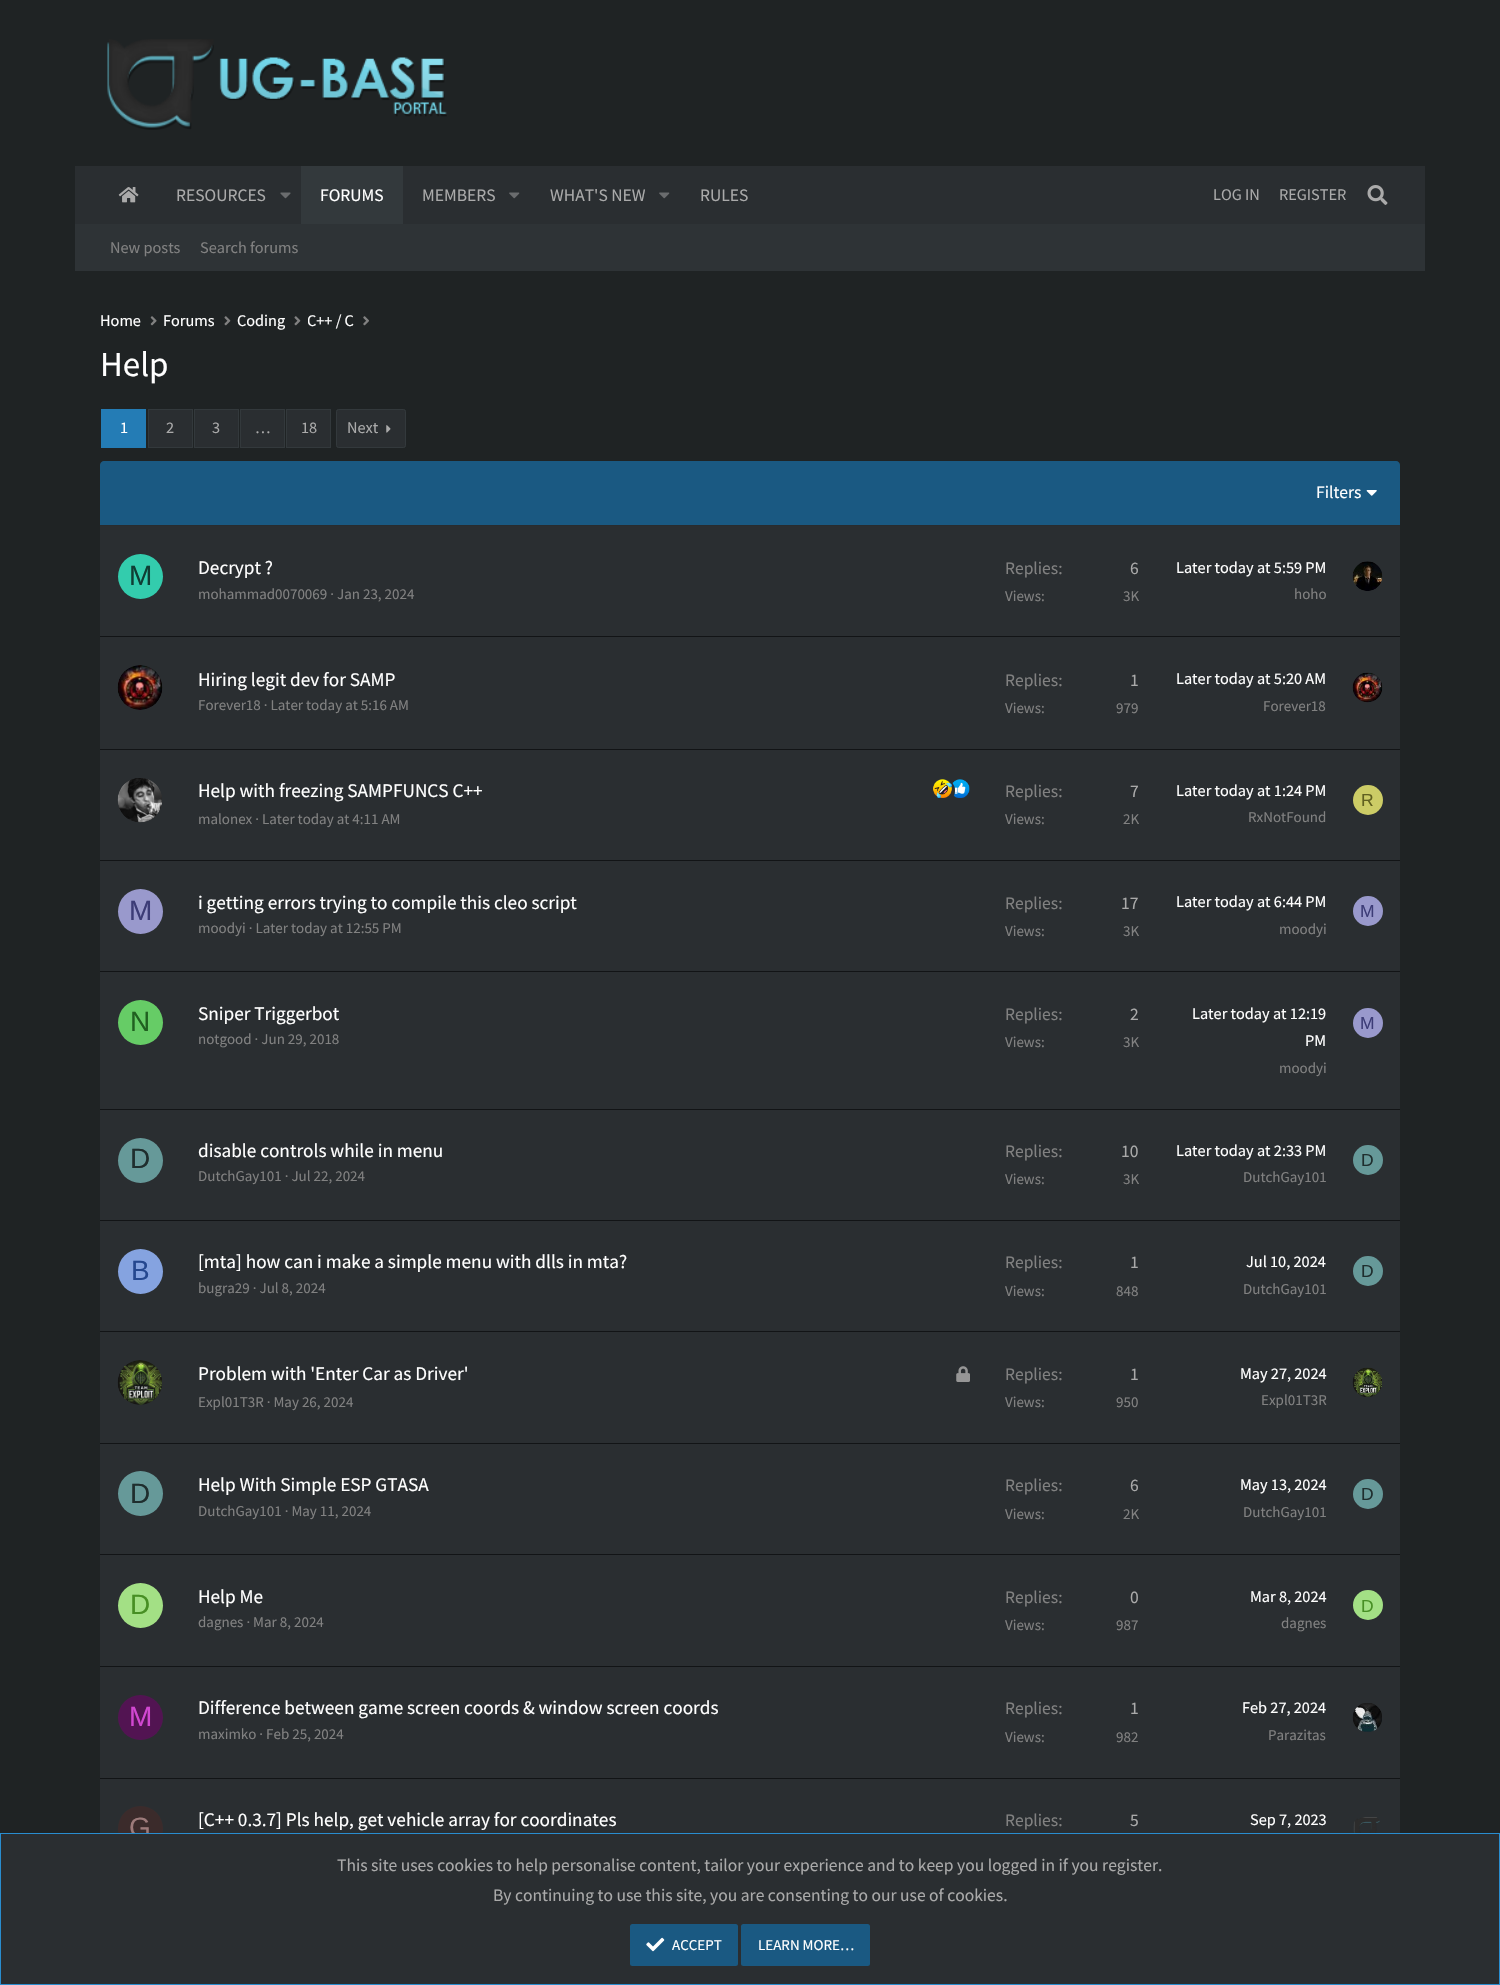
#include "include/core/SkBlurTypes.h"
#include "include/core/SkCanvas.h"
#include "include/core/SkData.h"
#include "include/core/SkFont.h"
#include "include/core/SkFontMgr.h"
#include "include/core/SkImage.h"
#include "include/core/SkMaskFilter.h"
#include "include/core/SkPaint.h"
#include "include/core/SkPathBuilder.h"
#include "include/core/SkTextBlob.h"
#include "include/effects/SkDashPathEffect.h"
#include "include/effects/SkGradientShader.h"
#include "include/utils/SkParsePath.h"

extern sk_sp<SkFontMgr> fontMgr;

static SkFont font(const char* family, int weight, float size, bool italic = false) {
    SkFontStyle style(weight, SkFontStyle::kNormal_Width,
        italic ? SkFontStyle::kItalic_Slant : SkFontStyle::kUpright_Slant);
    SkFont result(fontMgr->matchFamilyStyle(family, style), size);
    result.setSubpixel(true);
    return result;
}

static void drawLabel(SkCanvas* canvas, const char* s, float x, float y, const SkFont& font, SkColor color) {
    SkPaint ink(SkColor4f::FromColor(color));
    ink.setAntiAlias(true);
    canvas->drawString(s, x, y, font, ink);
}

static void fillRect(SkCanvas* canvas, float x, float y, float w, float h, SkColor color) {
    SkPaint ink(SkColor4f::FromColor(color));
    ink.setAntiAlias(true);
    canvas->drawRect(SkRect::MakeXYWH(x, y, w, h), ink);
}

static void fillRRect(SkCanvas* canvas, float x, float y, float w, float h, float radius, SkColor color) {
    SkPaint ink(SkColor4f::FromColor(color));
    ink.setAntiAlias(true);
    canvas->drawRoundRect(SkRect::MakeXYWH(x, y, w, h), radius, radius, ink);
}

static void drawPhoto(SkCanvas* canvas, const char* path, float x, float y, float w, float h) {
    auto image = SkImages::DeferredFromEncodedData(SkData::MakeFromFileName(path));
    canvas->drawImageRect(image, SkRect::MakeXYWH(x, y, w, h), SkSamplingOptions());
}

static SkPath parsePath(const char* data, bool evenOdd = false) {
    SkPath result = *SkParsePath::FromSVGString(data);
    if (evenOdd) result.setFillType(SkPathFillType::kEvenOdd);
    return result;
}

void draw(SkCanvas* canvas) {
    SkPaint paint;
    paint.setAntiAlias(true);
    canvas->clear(0xFF1F2324);
    drawPhoto(canvas, "assets/img1.png", 107, 39, 340, 91);
    fillRect(canvas, 75, 166, 1350, 58, 0xFF2A2E31);
    drawPhoto(canvas, "assets/img2.png", 118, 187, 21, 16);
    SkFont font1 = font("Source Sans Pro", 400, 17.5f);
    drawLabel(canvas, "RESOURCES", 176, 201, font1, 0xFFAAAAAA);
    drawPhoto(canvas, "assets/img3.png", 280, 192, 11, 7);
    fillRect(canvas, 301, 166, 102, 58, 0xFF33393C);
    drawLabel(canvas, "FORUMS", 320, 201, font1, 0xFFFFFFFF);
    drawLabel(canvas, "MEMBERS", 422, 201, font1, 0xFFAAAAAA);
    drawPhoto(canvas, "assets/img4.png", 509, 192, 11, 7);
    drawLabel(canvas, "WHAT'S NEW", 550, 201, font1, 0xFFAAAAAA);
    drawPhoto(canvas, "assets/img4.png", 659, 192, 11, 7);
    drawLabel(canvas, "RULES", 700, 201, font1, 0xFFAAAAAA);
    SkFont font2 = font("Source Sans Pro", 400, 16.25f);
    drawLabel(canvas, "LOG IN", 1213, 200, font2, 0xFFAAAAAA);
    drawLabel(canvas, "REGISTER", 1279, 200, font2, 0xFFAAAAAA);
    drawPhoto(canvas, "assets/img5.png", 1367, 185, 21, 20);
    fillRect(canvas, 75, 224, 1350, 47, 0xFF2E3336);
    drawLabel(canvas, "New posts", 110, 253, font2, 0xFF818181);
    drawLabel(canvas, "Search forums", 200, 253, font2, 0xFF818181);
    drawLabel(canvas, "Home", 100, 326, font2, 0xFFFFFFFF);
    drawPhoto(canvas, "assets/img6.png", 150, 316, 7, 10);
    drawLabel(canvas, "Forums", 163, 326, font2, 0xFFFFFFFF);
    drawPhoto(canvas, "assets/img7.png", 224, 316, 7, 10);
    drawLabel(canvas, "Coding", 237, 326, font2, 0xFFFFFFFF);
    drawPhoto(canvas, "assets/img7.png", 294, 316, 7, 10);
    canvas->save();
    canvas->clipRect(SkRect::MakeXYWH(308, 309, 46, 25));
    drawLabel(canvas, "C++ / C", 307, 326, font2, 0xFFFFFFFF);
    canvas->restore();
    drawPhoto(canvas, "assets/img8.png", 363, 316, 6, 10);
    SkFont font3 = font("Source Sans Pro", 400, 35);
    drawLabel(canvas, "Help", 100, 376, font3, 0xFFFFFFFF);
    fillRect(canvas, 101, 409, 45, 39, 0xFF247CB5);
    drawLabel(canvas, "1", 120, 433, font2, 0xFFFFFFFF);
    paint.setColor(0xFF2A2E31);
    canvas->drawRect(SkRect::MakeXYWH(148.5f, 409.5f, 44, 38), paint);
    paint.setStroke(true);
    paint.setStrokeWidth(1);
    paint.setColor(0xFF33393C);
    canvas->drawRect(SkRect::MakeXYWH(148.5f, 409.5f, 44, 38), paint);
    drawLabel(canvas, "2", 166, 433, font2, 0xFFAAAAAA);
    paint.setStroke(false);
    paint.setColor(0xFF2A2E31);
    canvas->drawRect(SkRect::MakeXYWH(194.5f, 409.5f, 44, 38), paint);
    paint.setStroke(true);
    paint.setColor(0xFF33393C);
    canvas->drawRect(SkRect::MakeXYWH(194.5f, 409.5f, 44, 38), paint);
    drawLabel(canvas, "3", 212, 433, font2, 0xFFAAAAAA);
    paint.setStroke(false);
    paint.setColor(0xFF2A2E31);
    canvas->drawRect(SkRect::MakeXYWH(240.5f, 409.5f, 44, 38), paint);
    paint.setStroke(true);
    paint.setColor(0xFF33393C);
    canvas->drawRect(SkRect::MakeXYWH(240.5f, 409.5f, 44, 38), paint);
    drawLabel(canvas, "…", 255, 433, font2, 0xFFAAAAAA);
    paint.setStroke(false);
    paint.setColor(0xFF2A2E31);
    canvas->drawRect(SkRect::MakeXYWH(286.5f, 409.5f, 44, 38), paint);
    paint.setStroke(true);
    paint.setColor(0xFF33393C);
    canvas->drawRect(SkRect::MakeXYWH(286.5f, 409.5f, 44, 38), paint);
    drawLabel(canvas, "18", 301, 433, font2, 0xFFAAAAAA);
    paint.setStroke(false);
    paint.setColor(0xFF2A2E31);
    canvas->drawRoundRect(SkRect::MakeXYWH(336.5f, 409.5f, 69, 38), 2, 2, paint);
    paint.setStroke(true);
    paint.setColor(0xFF33393C);
    canvas->drawRoundRect(SkRect::MakeXYWH(336.5f, 409.5f, 69, 38), 2, 2, paint);
    drawLabel(canvas, "Next", 347, 433, font2, 0xFFAAAAAA);
    drawPhoto(canvas, "assets/img9.png", 386, 425, 5, 8);
    fillRRect(canvas, 100, 461, 1300, 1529, 5, 0xFF2A2E31);
    paint.setStroke(false);
    paint.setColor(0xFF1A5982);
    canvas->drawPath(parsePath("M104 461H1396C1398 461 1400 463 1400 465V526H100V465C100 463 102 461 104 461Z"), paint);
    fillRect(canvas, 100, 525, 1300, 1, 0xFF282C2F);
    drawLabel(canvas, "Filters", 1316, 498, font1, 0xFFFFFFFF);
    drawPhoto(canvas, "assets/img10.png", 1366, 490, 11, 6);
    paint.setColor(0xFF33CCAD);
    canvas->drawCircle(140.5f, 576.5f, 22.5f, paint);
    SkFont font4 = font("Liberation Sans", 400, 28);
    drawLabel(canvas, "M", 129, 585, font4, 0xFF0F3D34);
    SkFont font5 = font("Source Sans Pro", 400, 19.25f);
    drawLabel(canvas, "Decrypt ?", 198, 574, font5, 0xFFFFFFFF);
    SkFont font6 = font("Source Sans Pro", 400, 15);
    drawLabel(canvas, "mohammad0070069 · Jan 23, 2024", 198, 599, font6, 0xFF818181);
    drawLabel(canvas, "Replies:", 1005, 574, font1, 0xFF818181);
    drawLabel(canvas, "6", 1130, 574, font1, 0xFFAAAAAA);
    drawLabel(canvas, "Views:", 1005, 601, font6, 0xFF818181);
    drawLabel(canvas, "3K", 1123, 601, font6, 0xFF818181);
    drawLabel(canvas, "Later today at 5:59 PM", 1176, 573, font2, 0xFFFFFFFF);
    drawLabel(canvas, "hoho", 1294, 599, font6, 0xFF818181);
    drawPhoto(canvas, "assets/img11.png", 1352, 561, 31, 30);
    fillRect(canvas, 100, 636, 1300, 1, 0xFF121416);
    drawPhoto(canvas, "assets/img12.png", 117, 665, 46, 45);
    drawLabel(canvas, "Hiring legit dev for SAMP", 198, 686, font5, 0xFFFFFFFF);
    drawLabel(canvas, "Forever18 · Later today at 5:16 AM", 198, 710, font6, 0xFF818181);
    drawLabel(canvas, "Replies:", 1005, 686, font1, 0xFF818181);
    drawLabel(canvas, "1", 1130, 686, font1, 0xFFAAAAAA);
    drawLabel(canvas, "Views:", 1005, 713, font6, 0xFF818181);
    drawLabel(canvas, "979", 1116, 713, font6, 0xFF818181);
    drawLabel(canvas, "Later today at 5:20 AM", 1176, 684, font2, 0xFFFFFFFF);
    drawLabel(canvas, "Forever18", 1263, 711, font6, 0xFF818181);
    drawPhoto(canvas, "assets/img13.png", 1352, 672, 31, 31);
    fillRect(canvas, 100, 749, 1300, 1, 0xFF121416);
    drawPhoto(canvas, "assets/img14.png", 117, 778, 45, 45);
    drawLabel(canvas, "Help with freezing SAMPFUNCS C++", 198, 797, font5, 0xFFFFFFFF);
    drawPhoto(canvas, "assets/img16.png", 952, 779, 18, 19);
    paint.setColor(0xFF2A2E31);
    canvas->drawCircle(942.5f, 790.5f, 12.5f, paint);
    drawPhoto(canvas, "assets/img15.png", 933, 779, 19, 19);
    drawLabel(canvas, "malonex · Later today at 4:11 AM", 198, 824, font6, 0xFF818181);
    drawLabel(canvas, "Replies:", 1005, 797, font1, 0xFF818181);
    drawLabel(canvas, "7", 1130, 797, font1, 0xFFAAAAAA);
    drawLabel(canvas, "Views:", 1005, 824, font6, 0xFF818181);
    drawLabel(canvas, "2K", 1123, 824, font6, 0xFF818181);
    drawLabel(canvas, "Later today at 1:24 PM", 1176, 796, font2, 0xFFFFFFFF);
    drawLabel(canvas, "RxNotFound", 1248, 822, font6, 0xFF818181);
    paint.setColor(0xFFCCCC66);
    canvas->drawCircle(1368, 800, 15, paint);
    SkFont font7 = font("Liberation Sans", 400, 17.5f);
    drawLabel(canvas, "R", 1361, 806, font7, 0xFF606020);
    fillRect(canvas, 100, 860, 1300, 1, 0xFF121416);
    paint.setColor(0xFF9999CC);
    canvas->drawCircle(140.5f, 911.5f, 22.5f, paint);
    drawLabel(canvas, "M", 129, 920, font4, 0xFF3C3C77);
    drawLabel(canvas, "i getting errors trying to compile this cleo script", 198, 909, font5, 0xFFFFFFFF);
    drawLabel(canvas, "moodyi · Later today at 12:55 PM", 198, 933, font6, 0xFF818181);
    drawLabel(canvas, "Replies:", 1005, 909, font1, 0xFF818181);
    drawLabel(canvas, "17", 1121, 909, font1, 0xFFAAAAAA);
    drawLabel(canvas, "Views:", 1005, 936, font6, 0xFF818181);
    drawLabel(canvas, "3K", 1123, 936, font6, 0xFF818181);
    drawLabel(canvas, "Later today at 6:44 PM", 1176, 907, font2, 0xFFFFFFFF);
    drawLabel(canvas, "moodyi", 1279, 934, font6, 0xFF818181);
    canvas->drawCircle(1368, 911, 15, paint);
    drawLabel(canvas, "M", 1360, 917, font7, 0xFF3C3C77);
    fillRect(canvas, 100, 971, 1300, 1, 0xFF121416);
    paint.setColor(0xFF66CC66);
    canvas->drawCircle(140.5f, 1022.5f, 22.5f, paint);
    drawLabel(canvas, "N", 130, 1031, font4, 0xFF206020);
    drawLabel(canvas, "Sniper Triggerbot", 198, 1020, font5, 0xFFFFFFFF);
    drawLabel(canvas, "notgood · Jun 29, 2018", 198, 1044, font6, 0xFF818181);
    drawLabel(canvas, "Replies:", 1005, 1020, font1, 0xFF818181);
    drawLabel(canvas, "2", 1130, 1020, font1, 0xFFAAAAAA);
    drawLabel(canvas, "Views:", 1005, 1047, font6, 0xFF818181);
    drawLabel(canvas, "3K", 1123, 1047, font6, 0xFF818181);
    drawLabel(canvas, "Later today at 12:19", 1192, 1019, font2, 0xFFFFFFFF);
    drawLabel(canvas, "PM", 1305, 1046, font2, 0xFFFFFFFF);
    drawLabel(canvas, "moodyi", 1279, 1073, font6, 0xFF818181);
    paint.setColor(0xFF9999CC);
    canvas->drawCircle(1368, 1023, 15, paint);
    drawLabel(canvas, "M", 1360, 1029, font7, 0xFF3C3C77);
    fillRect(canvas, 100, 1109, 1300, 1, 0xFF121416);
    paint.setColor(0xFF669999);
    canvas->drawCircle(140.5f, 1160.5f, 22.5f, paint);
    drawLabel(canvas, "D", 130, 1168, font4, 0xFF1F2E2E);
    drawLabel(canvas, "disable controls while in menu", 198, 1157, font5, 0xFFFFFFFF);
    drawLabel(canvas, "DutchGay101 · Jul 22, 2024", 198, 1181, font6, 0xFF818181);
    drawLabel(canvas, "Replies:", 1005, 1157, font1, 0xFF818181);
    drawLabel(canvas, "10", 1121, 1157, font1, 0xFFAAAAAA);
    drawLabel(canvas, "Views:", 1005, 1184, font6, 0xFF818181);
    drawLabel(canvas, "3K", 1123, 1184, font6, 0xFF818181);
    drawLabel(canvas, "Later today at 2:33 PM", 1176, 1156, font2, 0xFFFFFFFF);
    drawLabel(canvas, "DutchGay101", 1243, 1182, font6, 0xFF818181);
    canvas->drawCircle(1368, 1160, 15, paint);
    drawLabel(canvas, "D", 1361, 1166, font7, 0xFF1F2E2E);
    fillRect(canvas, 100, 1220, 1300, 1, 0xFF121416);
    paint.setColor(0xFF85A3E0);
    canvas->drawCircle(140.5f, 1271.5f, 22.5f, paint);
    drawLabel(canvas, "B", 131, 1280, font4, 0xFF24478F);
    drawLabel(canvas, "[mta] how can i make a simple menu with dlls in mta?", 198, 1268, font5, 0xFFFFFFFF);
    drawLabel(canvas, "bugra29 · Jul 8, 2024", 198, 1293, font6, 0xFF818181);
    drawLabel(canvas, "Replies:", 1005, 1268, font1, 0xFF818181);
    drawLabel(canvas, "1", 1130, 1268, font1, 0xFFAAAAAA);
    drawLabel(canvas, "Views:", 1005, 1296, font6, 0xFF818181);
    drawLabel(canvas, "848", 1116, 1296, font6, 0xFF818181);
    drawLabel(canvas, "Jul 10, 2024", 1246, 1267, font2, 0xFFFFFFFF);
    drawLabel(canvas, "DutchGay101", 1243, 1294, font6, 0xFF818181);
    paint.setColor(0xFF669999);
    canvas->drawCircle(1368, 1271, 15, paint);
    drawLabel(canvas, "D", 1361, 1277, font7, 0xFF1F2E2E);
    fillRect(canvas, 100, 1331, 1300, 1, 0xFF121416);
    drawPhoto(canvas, "assets/img17.png", 117, 1360, 45, 45);
    drawLabel(canvas, "Problem with 'Enter Car as Driver'", 198, 1380, font5, 0xFFFFFFFF);
    drawPhoto(canvas, "assets/img18.png", 956, 1366, 14, 16);
    drawLabel(canvas, "Expl01T3R · May 26, 2024", 198, 1407, font6, 0xFF818181);
    drawLabel(canvas, "Replies:", 1005, 1380, font1, 0xFF818181);
    drawLabel(canvas, "1", 1130, 1380, font1, 0xFFAAAAAA);
    drawLabel(canvas, "Views:", 1005, 1407, font6, 0xFF818181);
    drawLabel(canvas, "950", 1116, 1407, font6, 0xFF818181);
    drawLabel(canvas, "May 27, 2024", 1240, 1379, font2, 0xFFFFFFFF);
    drawLabel(canvas, "Expl01T3R", 1261, 1405, font6, 0xFF818181);
    drawPhoto(canvas, "assets/img19.png", 1352, 1367, 30, 30);
    fillRect(canvas, 100, 1443, 1300, 1, 0xFF121416);
    canvas->drawCircle(140.5f, 1493.5f, 22.5f, paint);
    drawLabel(canvas, "D", 130, 1503, font4, 0xFF1F2E2E);
    drawLabel(canvas, "Help With Simple ESP GTASA", 198, 1491, font5, 0xFFFFFFFF);
    drawLabel(canvas, "DutchGay101 · May 11, 2024", 198, 1516, font6, 0xFF818181);
    drawLabel(canvas, "Replies:", 1005, 1491, font1, 0xFF818181);
    drawLabel(canvas, "6", 1130, 1491, font1, 0xFFAAAAAA);
    drawLabel(canvas, "Views:", 1005, 1519, font6, 0xFF818181);
    drawLabel(canvas, "2K", 1123, 1519, font6, 0xFF818181);
    drawLabel(canvas, "May 13, 2024", 1240, 1490, font2, 0xFFFFFFFF);
    drawLabel(canvas, "DutchGay101", 1243, 1517, font6, 0xFF818181);
    canvas->drawCircle(1368, 1494, 15, paint);
    drawLabel(canvas, "D", 1361, 1500, font7, 0xFF1F2E2E);
    fillRect(canvas, 100, 1554, 1300, 1, 0xFF121416);
    paint.setColor(0xFFA3E085);
    canvas->drawCircle(140.5f, 1605.5f, 22.5f, paint);
    drawLabel(canvas, "D", 130, 1614, font4, 0xFF478F24);
    drawLabel(canvas, "Help Me", 198, 1603, font5, 0xFFFFFFFF);
    drawLabel(canvas, "dagnes · Mar 8, 2024", 198, 1627, font6, 0xFF818181);
    drawLabel(canvas, "Replies:", 1005, 1603, font1, 0xFF818181);
    drawLabel(canvas, "0", 1130, 1603, font1, 0xFFAAAAAA);
    drawLabel(canvas, "Views:", 1005, 1630, font6, 0xFF818181);
    drawLabel(canvas, "987", 1116, 1630, font6, 0xFF818181);
    drawLabel(canvas, "Mar 8, 2024", 1250, 1602, font2, 0xFFFFFFFF);
    drawLabel(canvas, "dagnes", 1281, 1628, font6, 0xFF818181);
    canvas->drawCircle(1368, 1605, 15, paint);
    drawLabel(canvas, "D", 1361, 1612, font7, 0xFF478F24);
    fillRect(canvas, 100, 1666, 1300, 1, 0xFF121416);
    paint.setColor(0xFF521452);
    canvas->drawCircle(140.5f, 1717.5f, 22.5f, paint);
    drawLabel(canvas, "M", 129, 1726, font4, 0xFFD147D1);
    drawLabel(canvas, "Difference between game screen coords & window screen coords", 198, 1714, font5, 0xFFFFFFFF);
    drawLabel(canvas, "maximko · Feb 25, 2024", 198, 1739, font6, 0xFF818181);
    drawLabel(canvas, "Replies:", 1005, 1714, font1, 0xFF818181);
    drawLabel(canvas, "1", 1130, 1714, font1, 0xFFAAAAAA);
    drawLabel(canvas, "Views:", 1005, 1742, font6, 0xFF818181);
    drawLabel(canvas, "982", 1116, 1742, font6, 0xFF818181);
    drawLabel(canvas, "Feb 27, 2024", 1242, 1713, font2, 0xFFFFFFFF);
    drawLabel(canvas, "Parazitas", 1268, 1740, font6, 0xFF818181);
    drawPhoto(canvas, "assets/img20.png", 1352, 1703, 30, 29);
    fillRect(canvas, 100, 1778, 1300, 1, 0xFF121416);
    paint.setColor(0xFF3B2B2B);
    canvas->drawCircle(140.5f, 1828.5f, 22.5f, paint);
    drawLabel(canvas, "G", 129, 1837, font4, 0xFF9D7B7B);
    drawLabel(canvas, "[C++ 0.3.7] Pls help, get vehicle array for coordinates", 198, 1826, font5, 0xFFFFFFFF);
    drawLabel(canvas, "Replies:", 1005, 1826, font1, 0xFF818181);
    drawLabel(canvas, "5", 1130, 1826, font1, 0xFFAAAAAA);
    drawLabel(canvas, "Sep 7, 2023", 1250, 1825, font2, 0xFFFFFFFF);
    drawPhoto(canvas, "assets/img21.png", 1353, 1817, 27, 16);
    paint.setColor(0xFF2A2E31);
    canvas->drawRect(SkRect::MakeXYWH(0.5f, 1833.5f, 1499, 151), paint);
    paint.setStroke(true);
    paint.setColor(0xFF298DCF);
    canvas->drawRect(SkRect::MakeXYWH(0.5f, 1833.5f, 1499, 151), paint);
    drawLabel(canvas, "This site uses cookies to help personalise content, tailor your experience and to keep you logged in if you register.", 337, 1871, font1, 0xFFAAAAAA);
    drawLabel(canvas, "By continuing to use this site, you are consenting to our use of cookies.", 493, 1901, font1, 0xFFAAAAAA);
    fillRRect(canvas, 630, 1924, 108, 42, 2.5f, 0xFF1A5982);
    drawPhoto(canvas, "assets/img22.png", 646, 1937, 19, 15);
    drawLabel(canvas, "ACCEPT", 672, 1950, font6, 0xFFFFFFFF);
    fillRRect(canvas, 741, 1924, 129, 42, 2.5f, 0xFF1A5982);
    drawLabel(canvas, "LEARN MORE…", 758, 1950, font6, 0xFFFFFFFF);
}
